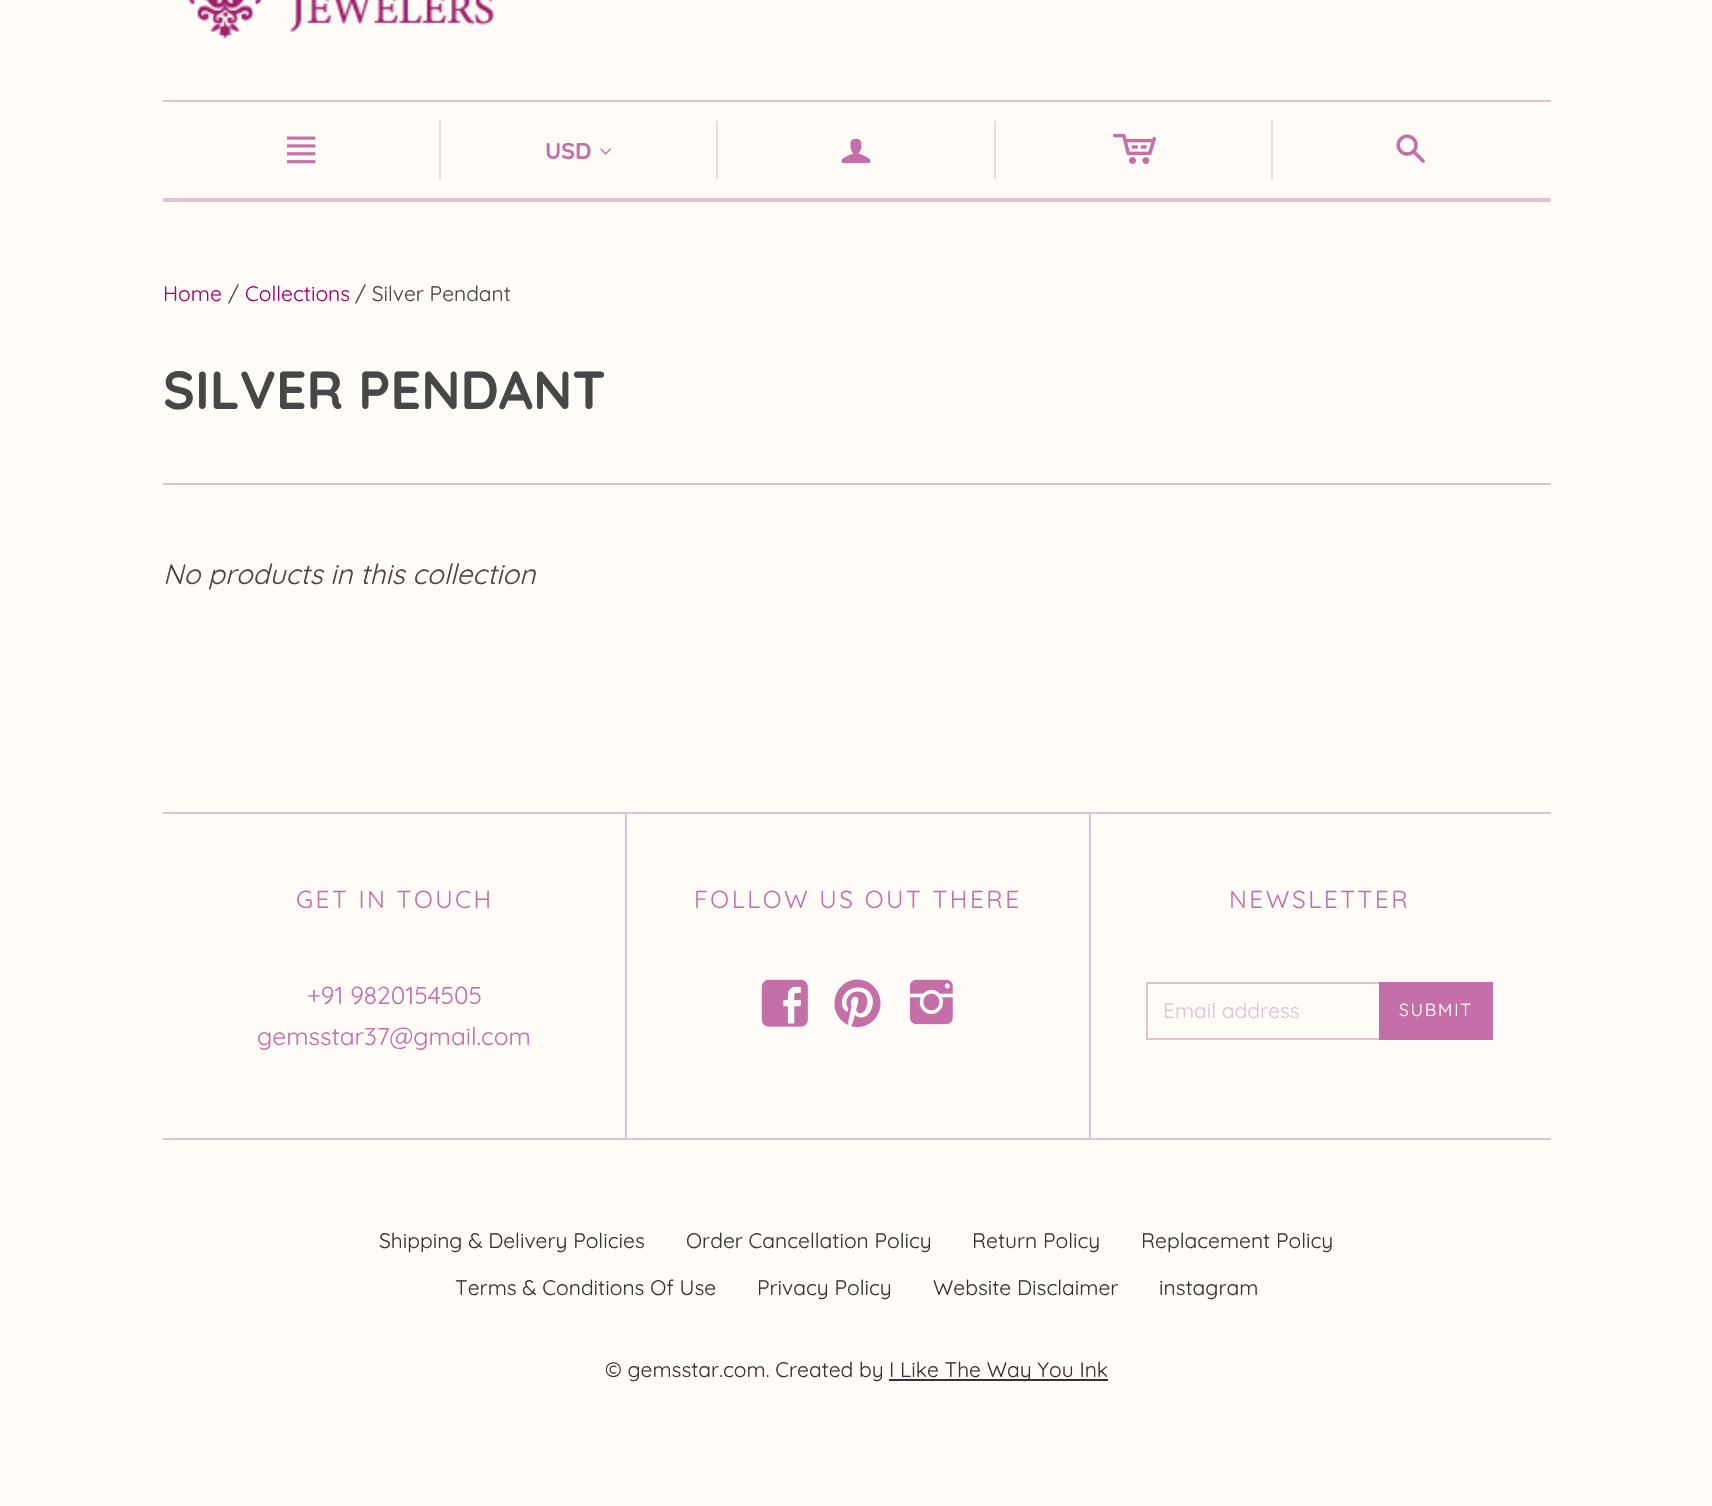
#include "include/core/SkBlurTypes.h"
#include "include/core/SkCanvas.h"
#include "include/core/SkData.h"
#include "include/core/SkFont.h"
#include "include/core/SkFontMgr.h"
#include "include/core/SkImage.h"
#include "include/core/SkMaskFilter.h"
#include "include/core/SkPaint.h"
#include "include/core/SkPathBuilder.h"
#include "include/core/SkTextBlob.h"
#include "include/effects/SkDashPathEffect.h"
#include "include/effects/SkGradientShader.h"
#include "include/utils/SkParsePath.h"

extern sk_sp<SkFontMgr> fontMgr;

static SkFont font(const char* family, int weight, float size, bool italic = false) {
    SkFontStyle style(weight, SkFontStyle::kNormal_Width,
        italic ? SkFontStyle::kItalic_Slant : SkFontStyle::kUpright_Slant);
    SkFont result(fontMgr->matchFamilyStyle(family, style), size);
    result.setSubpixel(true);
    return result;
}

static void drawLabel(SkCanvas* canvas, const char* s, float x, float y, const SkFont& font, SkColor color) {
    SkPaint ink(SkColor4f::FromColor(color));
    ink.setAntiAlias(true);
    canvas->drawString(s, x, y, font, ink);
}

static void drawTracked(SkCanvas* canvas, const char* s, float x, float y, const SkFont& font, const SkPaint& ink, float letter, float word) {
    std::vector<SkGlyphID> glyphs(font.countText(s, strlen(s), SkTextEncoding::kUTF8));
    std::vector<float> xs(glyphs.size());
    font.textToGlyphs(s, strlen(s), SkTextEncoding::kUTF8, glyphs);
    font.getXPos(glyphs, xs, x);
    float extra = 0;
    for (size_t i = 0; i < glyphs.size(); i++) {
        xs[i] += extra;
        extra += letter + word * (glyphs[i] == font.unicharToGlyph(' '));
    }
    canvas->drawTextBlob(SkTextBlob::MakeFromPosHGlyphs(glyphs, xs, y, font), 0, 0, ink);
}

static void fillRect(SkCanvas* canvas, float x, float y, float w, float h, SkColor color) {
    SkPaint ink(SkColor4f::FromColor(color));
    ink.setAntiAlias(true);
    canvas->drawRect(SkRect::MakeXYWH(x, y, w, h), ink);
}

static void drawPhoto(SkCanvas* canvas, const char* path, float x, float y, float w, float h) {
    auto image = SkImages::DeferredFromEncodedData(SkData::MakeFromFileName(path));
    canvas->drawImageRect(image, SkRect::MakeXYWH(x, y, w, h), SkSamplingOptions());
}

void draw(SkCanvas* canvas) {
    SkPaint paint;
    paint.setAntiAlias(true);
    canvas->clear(0xFFFFFCF8);
    drawPhoto(canvas, "assets/img1.png", 188, 0, 306, 39);
    fillRect(canvas, 163, 100, 1388, 2, 0xFFDEC3CF);
    fillRect(canvas, 163, 198, 1388, 4, 0xFFDEC3CF);
    drawPhoto(canvas, "assets/img2.png", 287, 136, 29, 28);
    fillRect(canvas, 439, 121, 2, 58, 0xFFEBDAE2);
    SkFont font1 = font("Quicksand", 700, 23);
    drawLabel(canvas, "USD", 545, 159, font1, 0xFFC46FA7);
    drawPhoto(canvas, "assets/img3.png", 600, 148, 11, 7);
    fillRect(canvas, 716, 121, 2, 58, 0xFFEBDAE2);
    drawPhoto(canvas, "assets/img4.png", 841, 138, 30, 26);
    fillRect(canvas, 994, 121, 2, 58, 0xFFEBDAE2);
    drawPhoto(canvas, "assets/img5.png", 1113, 133, 43, 31);
    fillRect(canvas, 1271, 121, 2, 58, 0xFFEBDAE2);
    drawPhoto(canvas, "assets/img6.png", 1396, 134, 29, 29);
    SkFont font2 = font("Quicksand", 400, 21);
    drawLabel(canvas, "Home", 163, 301, font2, 0xFFA00069);
    drawLabel(canvas, "/", 228, 301, font2, 0xFF474747);
    drawLabel(canvas, "Collections", 245, 301, font2, 0xFFA00069);
    drawLabel(canvas, "/ Silver Pendant", 355, 301, font2, 0xFF474747);
    fillRect(canvas, 163, 483, 1388, 2, 0xFFDEC3CF);
    SkFont font3 = font("Quicksand", 700, 53.5f);
    drawLabel(canvas, "SILVER PENDANT", 163, 409, font3, 0xFF474747);
    SkFont font4 = font("Quicksand", 400, 28, true);
    drawLabel(canvas, "No products in this collection", 163, 584, font4, 0xFF474747);
    fillRect(canvas, 163, 812, 1388, 2, 0xFFDEC3CF);
    fillRect(canvas, 163, 1138, 1388, 2, 0xFFDEC3CF);
    SkFont font5 = font("Quicksand", 400, 24.5f);
    paint.setColor(0xFFC46FA7);
    drawTracked(canvas, "GET IN TOUCH", 296, 908, font5, paint, 2.5f, 0);
    drawLabel(canvas, "+91 9820154505", 307, 1004, font5, 0xFFC46FA7);
    drawLabel(canvas, "gemsstar37@gmail.com", 257, 1045, font5, 0xFFC46FA7);
    fillRect(canvas, 625, 814, 2, 324, 0xFFDEC3CF);
    drawTracked(canvas, "FOLLOW US OUT THERE", 694, 908, font5, paint, 2.5f, 0);
    drawPhoto(canvas, "assets/img7.png", 761, 979, 47, 48);
    drawPhoto(canvas, "assets/img8.png", 834, 979, 47, 49);
    drawPhoto(canvas, "assets/img9.png", 910, 979, 43, 46);
    fillRect(canvas, 1089, 814, 2, 324, 0xFFDEC3CF);
    drawTracked(canvas, "NEWSLETTER", 1229, 908, font5, paint, 2.5f, 0);
    paint.setStroke(true);
    paint.setStrokeWidth(2);
    paint.setColor(0xFFDEC3CF);
    canvas->drawRect(SkRect::MakeXYWH(1147, 983, 345, 56), paint);
    drawLabel(canvas, "Email address", 1163, 1018, font2, 0xFFDEC3CF);
    fillRect(canvas, 1379, 982, 114, 58, 0xFFC46FA7);
    SkFont font6 = font("Quicksand", 400, 17.5f);
    paint.setStroke(false);
    paint.setColor(0xFFFFFCF8);
    drawTracked(canvas, "SUBMIT", 1399, 1016, font6, paint, 1.75f, 0);
    drawLabel(canvas, "Shipping & Delivery Policies", 379, 1248, font2, 0xFF333333);
    drawLabel(canvas, "Order Cancellation Policy", 686, 1248, font2, 0xFF333333);
    drawLabel(canvas, "Return Policy", 972, 1248, font2, 0xFF333333);
    drawLabel(canvas, "Replacement Policy", 1141, 1248, font2, 0xFF333333);
    drawLabel(canvas, "Terms & Conditions Of Use", 455, 1295, font2, 0xFF333333);
    drawLabel(canvas, "Privacy Policy", 757, 1295, font2, 0xFF333333);
    drawLabel(canvas, "Website Disclaimer", 933, 1295, font2, 0xFF333333);
    drawLabel(canvas, "instagram", 1159, 1295, font2, 0xFF333333);
    drawLabel(canvas, "© gemsstar.com. Created by", 605, 1377, font2, 0xFF333333);
    fillRect(canvas, 889, 1379, 219, 2, 0xFF333333);
    drawLabel(canvas, "I Like The Way You Ink", 889, 1377, font2, 0xFF333333);
}
